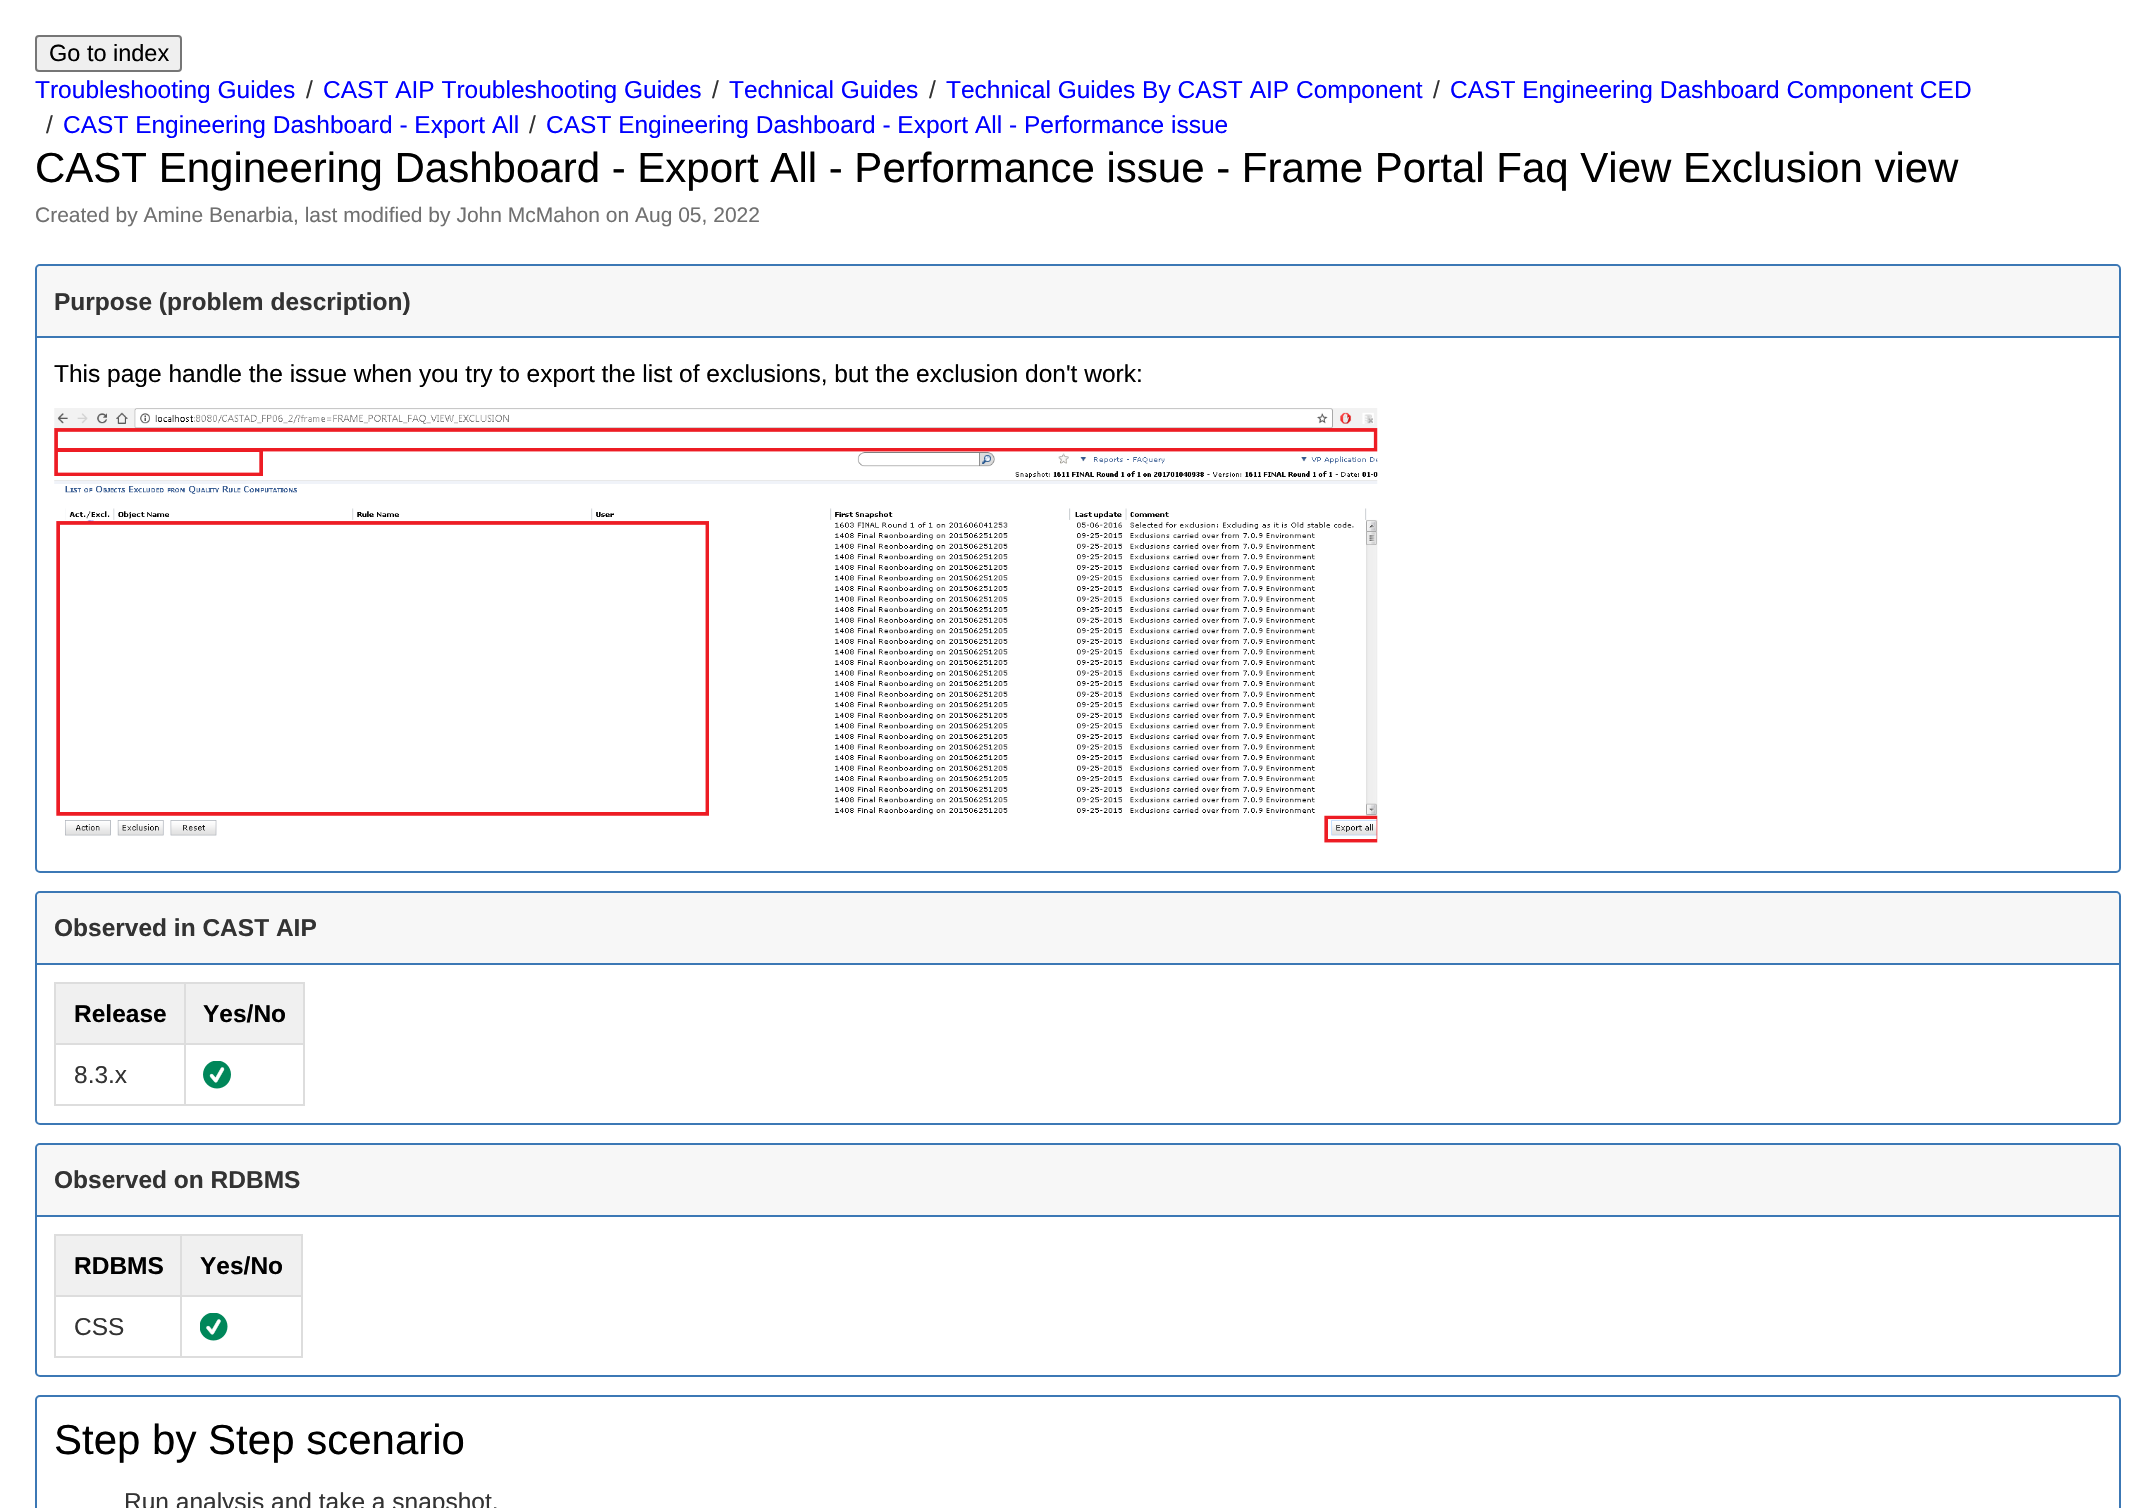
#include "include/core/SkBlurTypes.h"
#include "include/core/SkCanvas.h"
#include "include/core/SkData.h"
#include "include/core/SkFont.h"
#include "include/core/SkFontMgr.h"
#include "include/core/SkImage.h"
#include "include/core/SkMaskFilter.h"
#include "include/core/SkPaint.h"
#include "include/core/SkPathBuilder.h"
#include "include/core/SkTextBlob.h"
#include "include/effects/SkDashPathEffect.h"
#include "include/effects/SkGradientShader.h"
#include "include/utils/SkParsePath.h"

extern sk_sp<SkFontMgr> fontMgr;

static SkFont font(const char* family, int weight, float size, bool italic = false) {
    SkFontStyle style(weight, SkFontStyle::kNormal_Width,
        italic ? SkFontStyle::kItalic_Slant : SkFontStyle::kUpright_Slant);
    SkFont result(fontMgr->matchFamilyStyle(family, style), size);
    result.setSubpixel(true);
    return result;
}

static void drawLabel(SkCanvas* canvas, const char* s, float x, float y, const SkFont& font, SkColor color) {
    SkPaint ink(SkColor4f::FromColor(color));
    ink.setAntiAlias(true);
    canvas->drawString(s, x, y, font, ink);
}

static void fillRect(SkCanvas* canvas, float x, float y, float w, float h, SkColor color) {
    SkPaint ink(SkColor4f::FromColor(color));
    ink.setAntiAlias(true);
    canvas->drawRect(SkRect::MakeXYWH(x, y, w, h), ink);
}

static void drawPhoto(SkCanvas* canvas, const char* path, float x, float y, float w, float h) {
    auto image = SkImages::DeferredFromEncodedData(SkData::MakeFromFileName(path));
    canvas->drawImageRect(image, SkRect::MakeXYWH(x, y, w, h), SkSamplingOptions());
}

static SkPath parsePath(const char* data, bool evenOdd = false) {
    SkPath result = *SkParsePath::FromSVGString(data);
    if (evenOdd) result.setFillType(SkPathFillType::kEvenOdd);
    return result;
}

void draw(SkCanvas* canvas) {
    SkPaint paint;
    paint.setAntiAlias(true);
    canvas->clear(0xFFFFFFFF);
    paint.setColor(0xFFEFEFEF);
    canvas->drawRoundRect(SkRect::MakeXYWH(36, 36, 145, 35), 3, 3, paint);
    paint.setStroke(true);
    paint.setStrokeWidth(2);
    paint.setColor(0xFF767676);
    canvas->drawRoundRect(SkRect::MakeXYWH(36, 36, 145, 35), 3, 3, paint);
    SkFont font1 = font("Liberation Sans", 400, 23.5f);
    drawLabel(canvas, "Go to index", 49, 61, font1, 0xFF000000);
    SkFont font2 = font("Liberation Sans", 400, 24.5f);
    drawLabel(canvas, "Troubleshooting Guides", 35, 98, font2, 0xFF0000FF);
    drawLabel(canvas, "/", 306, 98, font2, 0xFF333333);
    drawLabel(canvas, "CAST AIP Troubleshooting Guides", 323, 98, font2, 0xFF0000FF);
    drawLabel(canvas, "/", 712, 98, font2, 0xFF333333);
    drawLabel(canvas, "Technical Guides", 729, 98, font2, 0xFF0000FF);
    drawLabel(canvas, "/", 929, 98, font2, 0xFF333333);
    drawLabel(canvas, "Technical Guides By CAST AIP Component", 946, 98, font2, 0xFF0000FF);
    drawLabel(canvas, "/", 1433, 98, font2, 0xFF333333);
    drawLabel(canvas, "CAST Engineering Dashboard Component CED", 1450, 98, font2, 0xFF0000FF);
    drawLabel(canvas, "/", 46, 133, font2, 0xFF333333);
    drawLabel(canvas, "CAST Engineering Dashboard - Export All", 63, 133, font2, 0xFF0000FF);
    drawLabel(canvas, "/", 529, 133, font2, 0xFF333333);
    drawLabel(canvas, "CAST Engineering Dashboard - Export All - Performance issue", 546, 133, font2, 0xFF0000FF);
    SkFont font3 = font("Liberation Sans", 400, 42);
    drawLabel(canvas, "CAST Engineering Dashboard - Export All - Performance issue - Frame Portal Faq View Exclusion view", 35, 182, font3, 0xFF000000);
    SkFont font4 = font("Liberation Sans", 400, 21);
    drawLabel(canvas, "Created by Amine Benarbia, last modified by John McMahon on Aug 05, 2022", 35, 222, font4, 0xFF707070);
    paint.setColor(0xFF3C78B5);
    canvas->drawRoundRect(SkRect::MakeXYWH(36, 265, 2084, 607), 4, 4, paint);
    paint.setStroke(false);
    paint.setColor(0xFFF7F7F7);
    canvas->drawPath(parsePath("M41 266H2115C2117 266 2119 268 2119 270V338H37V270C37 268 39 266 41 266Z"), paint);
    fillRect(canvas, 37, 336, 2082, 2, 0xFF3C78B5);
    SkFont font5 = font("Liberation Sans", 700, 24.5f);
    drawLabel(canvas, "Purpose (problem description)", 54, 310, font5, 0xFF333333);
    drawLabel(canvas, "This page handle the issue when you try to export the list of exclusions, but the exclusion don't work:", 54, 382, font2, 0xFF000000);
    drawPhoto(canvas, "assets/img1.png", 54, 408, 1324, 435);
    paint.setStroke(true);
    paint.setColor(0xFF3C78B5);
    canvas->drawRoundRect(SkRect::MakeXYWH(36, 892, 2084, 232), 4, 4, paint);
    paint.setStroke(false);
    paint.setColor(0xFFF7F7F7);
    canvas->drawPath(parsePath("M41 893H2115C2117 893 2119 895 2119 897V964H37V897C37 895 39 893 41 893Z"), paint);
    fillRect(canvas, 37, 963, 2082, 2, 0xFF3C78B5);
    drawLabel(canvas, "Observed in CAST AIP", 54, 936, font5, 0xFF333333);
    fillRect(canvas, 56, 984, 128, 59, 0xFFF0F0F0);
    fillRect(canvas, 184, 982, 121, 2, 0xFFDDDDDD);
    fillRect(canvas, 184, 1043, 121, 2, 0xFFDDDDDD);
    fillRect(canvas, 303, 1043, 2, 63, 0xFFDDDDDD);
    fillRect(canvas, 184, 1104, 121, 2, 0xFFDDDDDD);
    fillRect(canvas, 184, 1043, 2, 63, 0xFFDDDDDD);
    fillRect(canvas, 54, 1043, 132, 2, 0xFFDDDDDD);
    fillRect(canvas, 184, 982, 2, 63, 0xFFDDDDDD);
    fillRect(canvas, 54, 982, 132, 2, 0xFFDDDDDD);
    fillRect(canvas, 54, 1104, 132, 2, 0xFFDDDDDD);
    fillRect(canvas, 54, 1043, 2, 63, 0xFFDDDDDD);
    fillRect(canvas, 54, 982, 2, 63, 0xFFDDDDDD);
    drawLabel(canvas, "Release", 74, 1022, font5, 0xFF000000);
    fillRect(canvas, 186, 984, 117, 59, 0xFFF0F0F0);
    fillRect(canvas, 303, 982, 2, 63, 0xFFDDDDDD);
    drawLabel(canvas, "Yes/No", 203, 1022, font5, 0xFF000000);
    drawLabel(canvas, "8.3.x", 74, 1083, font2, 0xFF333333);
    drawPhoto(canvas, "assets/img2.png", 203, 1061, 28, 28);
    paint.setStroke(true);
    paint.setColor(0xFF3C78B5);
    canvas->drawRoundRect(SkRect::MakeXYWH(36, 1144, 2084, 232), 4, 4, paint);
    paint.setStroke(false);
    paint.setColor(0xFFF7F7F7);
    canvas->drawPath(parsePath("M41 1145H2115C2117 1145 2119 1147 2119 1149V1216H37V1149C37 1147 39 1145 41 1145Z"), paint);
    fillRect(canvas, 37, 1215, 2082, 2, 0xFF3C78B5);
    drawLabel(canvas, "Observed on RDBMS", 54, 1188, font5, 0xFF333333);
    fillRect(canvas, 56, 1236, 124, 59, 0xFFF0F0F0);
    fillRect(canvas, 180, 1234, 123, 2, 0xFFDDDDDD);
    fillRect(canvas, 180, 1295, 123, 2, 0xFFDDDDDD);
    fillRect(canvas, 301, 1295, 2, 63, 0xFFDDDDDD);
    fillRect(canvas, 180, 1356, 123, 2, 0xFFDDDDDD);
    fillRect(canvas, 180, 1295, 2, 63, 0xFFDDDDDD);
    fillRect(canvas, 54, 1295, 128, 2, 0xFFDDDDDD);
    fillRect(canvas, 180, 1234, 2, 63, 0xFFDDDDDD);
    fillRect(canvas, 54, 1234, 128, 2, 0xFFDDDDDD);
    fillRect(canvas, 54, 1356, 128, 2, 0xFFDDDDDD);
    fillRect(canvas, 54, 1295, 2, 63, 0xFFDDDDDD);
    fillRect(canvas, 54, 1234, 2, 63, 0xFFDDDDDD);
    drawLabel(canvas, "RDBMS", 74, 1274, font5, 0xFF000000);
    fillRect(canvas, 182, 1236, 119, 59, 0xFFF0F0F0);
    fillRect(canvas, 301, 1234, 2, 63, 0xFFDDDDDD);
    drawLabel(canvas, "Yes/No", 200, 1274, font5, 0xFF000000);
    drawLabel(canvas, "CSS", 74, 1335, font2, 0xFF333333);
    drawPhoto(canvas, "assets/img3.png", 200, 1313, 28, 28);
    paint.setStroke(true);
    paint.setColor(0xFF3C78B5);
    canvas->drawRoundRect(SkRect::MakeXYWH(36, 1396, 2084, 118), 4, 4, paint);
    drawLabel(canvas, "Step by Step scenario", 54, 1454, font3, 0xFF000000);
    drawLabel(canvas, "Run analysis and take a snapshot.", 124, 1510, font2, 0xFF333333);
}
